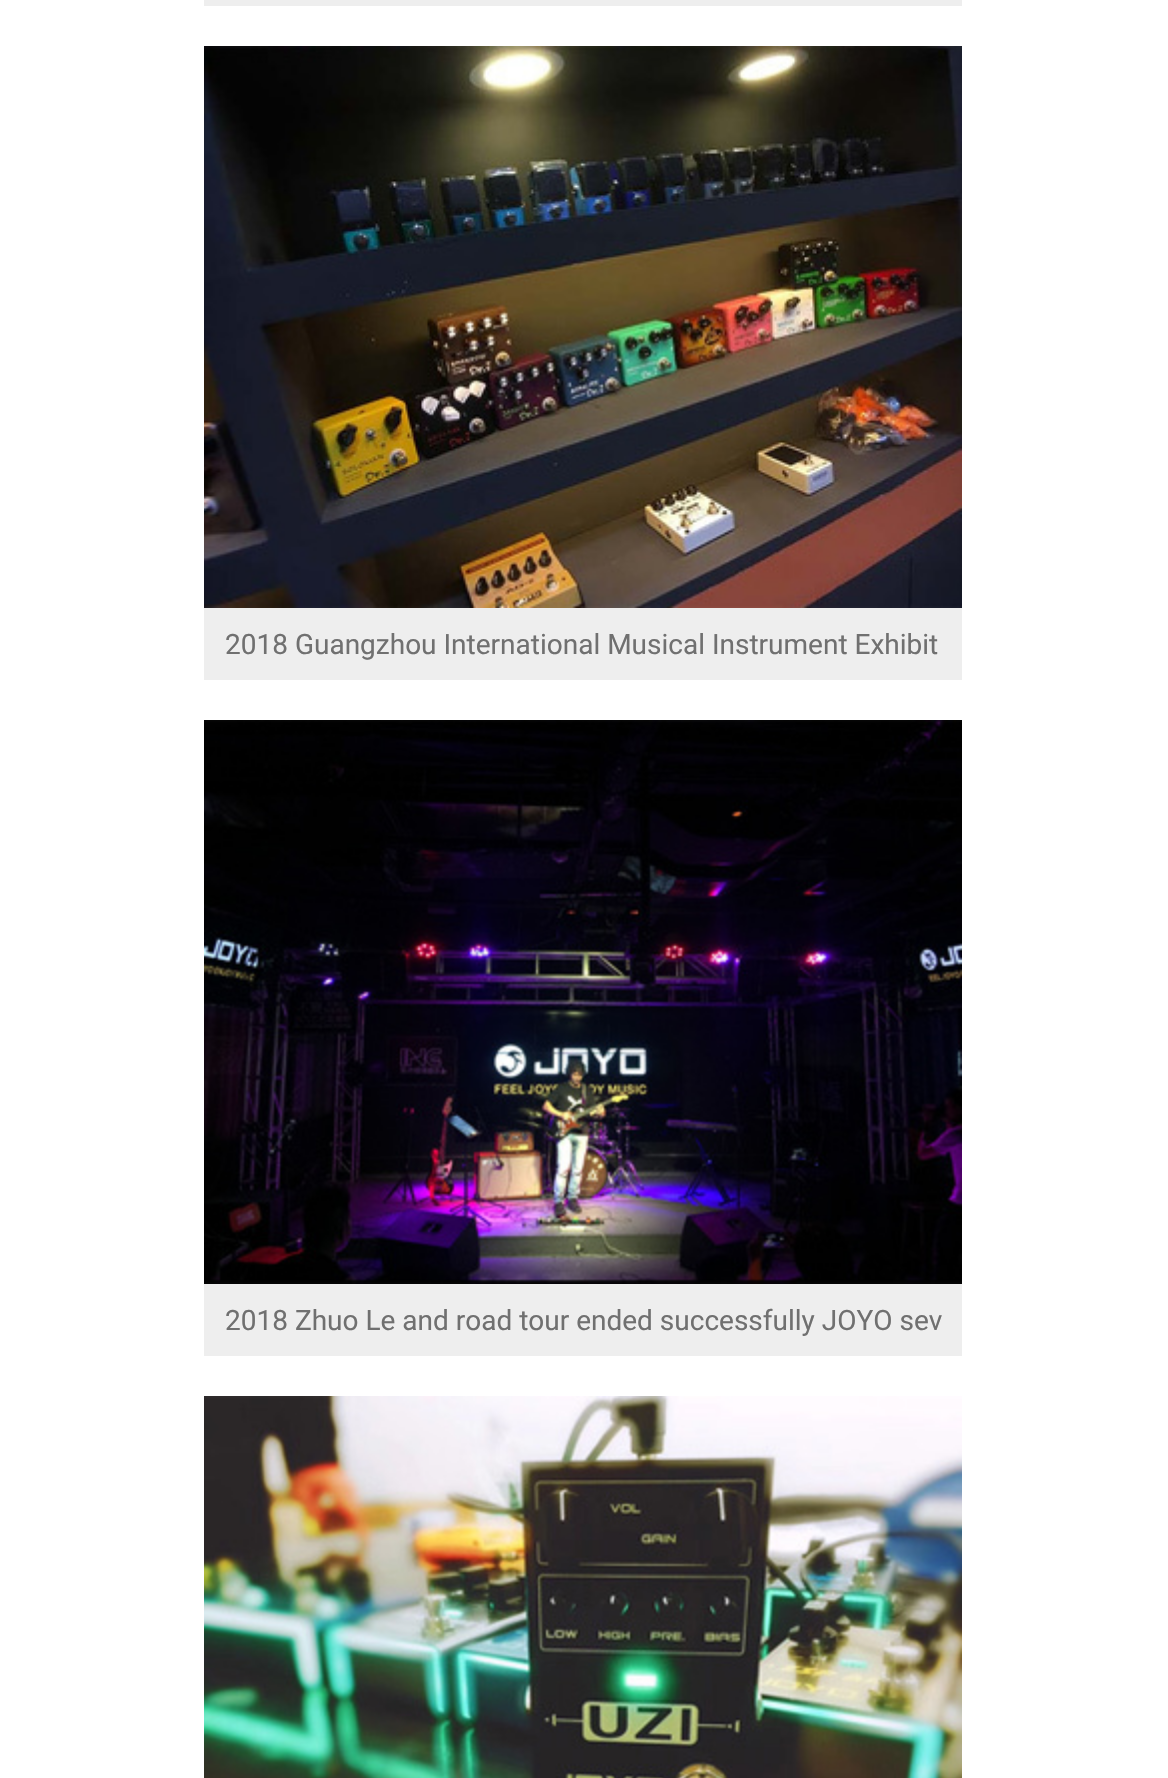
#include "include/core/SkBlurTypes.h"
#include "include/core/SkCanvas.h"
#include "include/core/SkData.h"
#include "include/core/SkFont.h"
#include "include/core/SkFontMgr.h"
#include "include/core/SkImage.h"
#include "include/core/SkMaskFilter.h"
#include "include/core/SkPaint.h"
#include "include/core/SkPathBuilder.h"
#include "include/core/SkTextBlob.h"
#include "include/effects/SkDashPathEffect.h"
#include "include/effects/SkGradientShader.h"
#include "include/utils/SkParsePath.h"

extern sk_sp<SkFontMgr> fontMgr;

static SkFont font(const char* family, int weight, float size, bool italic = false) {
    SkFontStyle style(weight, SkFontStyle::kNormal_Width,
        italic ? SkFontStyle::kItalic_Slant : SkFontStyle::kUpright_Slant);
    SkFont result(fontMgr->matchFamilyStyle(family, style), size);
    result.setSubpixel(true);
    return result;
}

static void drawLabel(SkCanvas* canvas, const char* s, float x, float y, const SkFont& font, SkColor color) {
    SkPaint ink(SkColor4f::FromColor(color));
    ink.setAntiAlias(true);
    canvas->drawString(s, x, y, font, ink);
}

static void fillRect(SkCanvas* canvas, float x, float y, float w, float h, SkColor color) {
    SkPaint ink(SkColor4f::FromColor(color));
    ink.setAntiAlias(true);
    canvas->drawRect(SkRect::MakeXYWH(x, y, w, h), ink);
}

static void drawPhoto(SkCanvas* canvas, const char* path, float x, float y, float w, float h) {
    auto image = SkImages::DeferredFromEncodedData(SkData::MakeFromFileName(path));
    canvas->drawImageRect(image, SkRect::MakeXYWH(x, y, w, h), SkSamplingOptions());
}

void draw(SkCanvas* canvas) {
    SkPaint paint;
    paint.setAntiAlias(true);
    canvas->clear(0xFFFFFFFF);
    fillRect(canvas, 204, 0, 758, 6, 0xFFEEEEEE);
    drawPhoto(canvas, "assets/img1.png", 204, 46, 758, 562);
    fillRect(canvas, 204, 608, 758, 72, 0xFFEEEEEE);
    SkFont font1 = font("Roboto", 400, 28);
    drawLabel(canvas, "2018 Guangzhou International Musical Instrument Exhibit", 225, 654, font1, 0xFF707070);
    drawPhoto(canvas, "assets/img2.png", 204, 720, 758, 564);
    fillRect(canvas, 204, 1284, 758, 72, 0xFFEEEEEE);
    drawLabel(canvas, "2018 Zhuo Le and road tour ended successfully JOYO sev", 225, 1330, font1, 0xFF707070);
    drawPhoto(canvas, "assets/img3.png", 204, 1396, 758, 382);
}
